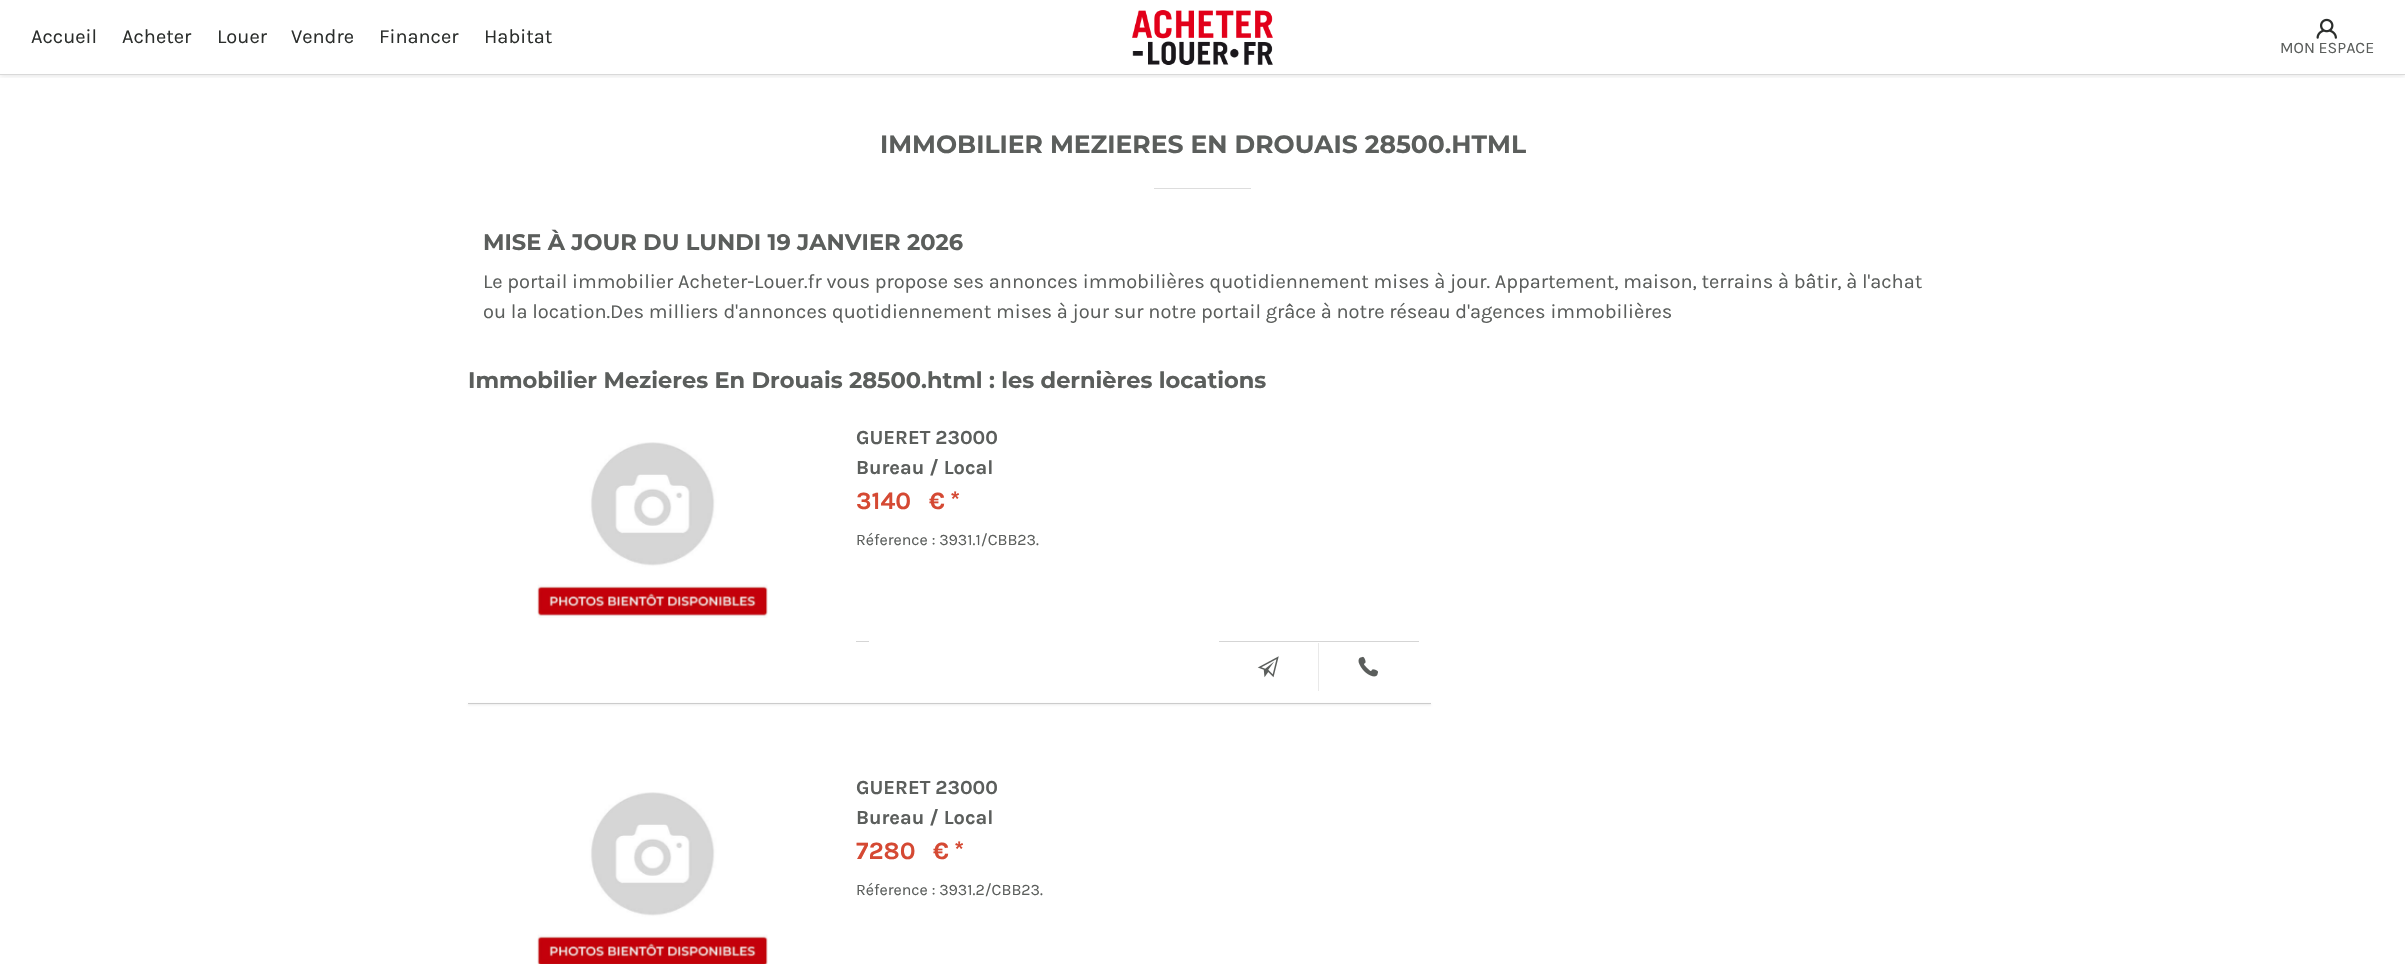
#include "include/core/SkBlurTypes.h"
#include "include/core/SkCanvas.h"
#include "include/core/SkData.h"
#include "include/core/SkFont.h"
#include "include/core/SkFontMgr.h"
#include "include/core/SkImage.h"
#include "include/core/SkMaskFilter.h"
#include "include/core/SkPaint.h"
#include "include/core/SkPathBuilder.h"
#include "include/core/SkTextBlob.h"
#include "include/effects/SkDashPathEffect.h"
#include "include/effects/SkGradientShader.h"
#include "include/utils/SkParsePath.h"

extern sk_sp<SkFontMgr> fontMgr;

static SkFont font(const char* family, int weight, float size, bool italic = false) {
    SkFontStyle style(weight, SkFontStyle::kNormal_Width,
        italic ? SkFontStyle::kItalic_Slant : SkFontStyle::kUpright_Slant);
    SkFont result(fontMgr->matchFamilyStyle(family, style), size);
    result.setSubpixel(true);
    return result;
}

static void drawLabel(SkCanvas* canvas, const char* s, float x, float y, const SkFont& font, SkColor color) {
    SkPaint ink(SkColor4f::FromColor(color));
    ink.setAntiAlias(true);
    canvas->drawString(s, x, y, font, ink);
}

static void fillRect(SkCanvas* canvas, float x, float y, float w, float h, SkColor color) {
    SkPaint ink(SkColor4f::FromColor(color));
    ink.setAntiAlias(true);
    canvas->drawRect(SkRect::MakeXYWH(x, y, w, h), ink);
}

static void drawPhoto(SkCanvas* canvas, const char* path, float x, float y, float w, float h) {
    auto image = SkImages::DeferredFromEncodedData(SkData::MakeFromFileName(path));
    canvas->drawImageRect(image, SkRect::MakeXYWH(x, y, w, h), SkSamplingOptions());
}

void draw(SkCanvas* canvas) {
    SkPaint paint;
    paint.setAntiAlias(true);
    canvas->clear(0xFFFFFFFF);
    canvas->save();
    canvas->clipRect(SkRect::MakeXYWH(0, 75, 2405, 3));
    paint.setColor(0x1A000000);
    paint.setMaskFilter(SkMaskFilter::MakeBlur(kNormal_SkBlurStyle, 2.5f));
    canvas->drawRect(SkRect::MakeXYWH(0, 1, 2405, 75), paint);
    paint.setMaskFilter(nullptr);
    canvas->restore();
    fillRect(canvas, 0, 74, 2405, 1, 0xFFD9D9D9);
    drawPhoto(canvas, "assets/img1.png", 1132, 10, 141, 55);
    SkFont font1 = font("Karla", 400, 20);
    drawLabel(canvas, "Accueil", 31, 43, font1, 0xFF2B2E2C);
    drawLabel(canvas, "Acheter", 122, 43, font1, 0xFF2B2E2C);
    drawLabel(canvas, "Louer", 217, 43, font1, 0xFF2B2E2C);
    drawLabel(canvas, "Vendre", 291, 43, font1, 0xFF2B2E2C);
    drawLabel(canvas, "Financer", 379, 43, font1, 0xFF2B2E2C);
    drawLabel(canvas, "Habitat", 484, 43, font1, 0xFF2B2E2C);
    drawPhoto(canvas, "assets/img2.png", 2316, 18, 21, 21);
    SkFont font2 = font("Karla", 400, 16);
    drawLabel(canvas, "MON ESPACE", 2280, 53, font2, 0xFF5B5E5C);
    SkFont font3 = font("Montserrat", 700, 25);
    drawLabel(canvas, "IMMOBILIER MEZIERES EN DROUAIS 28500.HTML", 880, 153, font3, 0xFF5B5E5C);
    fillRect(canvas, 1154, 188, 97, 1, 0xFFDDDDDD);
    SkFont font4 = font("Montserrat", 700, 22.5f);
    drawLabel(canvas, "MISE À JOUR DU LUNDI 19 JANVIER 2026", 483, 250, font4, 0xFF5B5E5C);
    drawLabel(canvas, "Le portail immobilier Acheter-Louer.fr vous propose ses annonces immobilières quotidiennement mises à jour. Appartement, maison, terrains à bâtir, à l'achat", 483, 288, font1, 0xFF5B5E5C);
    drawLabel(canvas, "ou la location.Des milliers d'annonces quotidiennement mises à jour sur notre portail grâce à notre réseau d'agences immobilières", 483, 318, font1, 0xFF5B5E5C);
    drawLabel(canvas, "Immobilier Mezieres En Drouais 28500.html : les dernières locations", 468, 388, font4, 0xFF5B5E5C);
    drawPhoto(canvas, "assets/img3.png", 537, 442, 231, 176);
    SkFont font5 = font("Karla", 700, 20);
    drawLabel(canvas, "GUERET 23000", 856, 444, font5, 0xFF5B5E5C);
    drawLabel(canvas, "Bureau / Local", 856, 474, font5, 0xFF5B5E5C);
    SkFont font6 = font("Karla", 700, 25);
    drawLabel(canvas, "3 140", 856, 509, font6, 0xFFD54933);
    drawLabel(canvas, "€", 929, 509, font6, 0xFFD54933);
    drawLabel(canvas, "*", 950, 509, font6, 0xFFD54933);
    drawLabel(canvas, "Réference : 3931.1/CBB23.", 856, 545, font2, 0xFF5B5E5C);
    fillRect(canvas, 856, 641, 13, 1, 0xFFD5D5D5);
    fillRect(canvas, 1219, 641, 200, 1, 0xFFD5D5D5);
    fillRect(canvas, 1318, 643, 1, 48, 0xFFE9E9E9);
    drawPhoto(canvas, "assets/img4.png", 1257, 656, 22, 22);
    drawPhoto(canvas, "assets/img5.png", 1358, 656, 20, 21);
    paint.setMaskFilter(SkMaskFilter::MakeBlur(kNormal_SkBlurStyle, 1));
    canvas->drawRect(SkRect::MakeXYWH(468, 704, 963, 1), paint);
    paint.setMaskFilter(nullptr);
    fillRect(canvas, 468, 703, 963, 1, 0xFFCCCCCC);
    drawPhoto(canvas, "assets/img6.png", 537, 792, 231, 172);
    drawLabel(canvas, "GUERET 23000", 856, 794, font5, 0xFF5B5E5C);
    drawLabel(canvas, "Bureau / Local", 856, 824, font5, 0xFF5B5E5C);
    drawLabel(canvas, "7 280", 856, 859, font6, 0xFFD54933);
    drawLabel(canvas, "€", 933, 859, font6, 0xFFD54933);
    drawLabel(canvas, "*", 954, 859, font6, 0xFFD54933);
    drawLabel(canvas, "Réference : 3931.2/CBB23.", 856, 895, font2, 0xFF5B5E5C);
}
